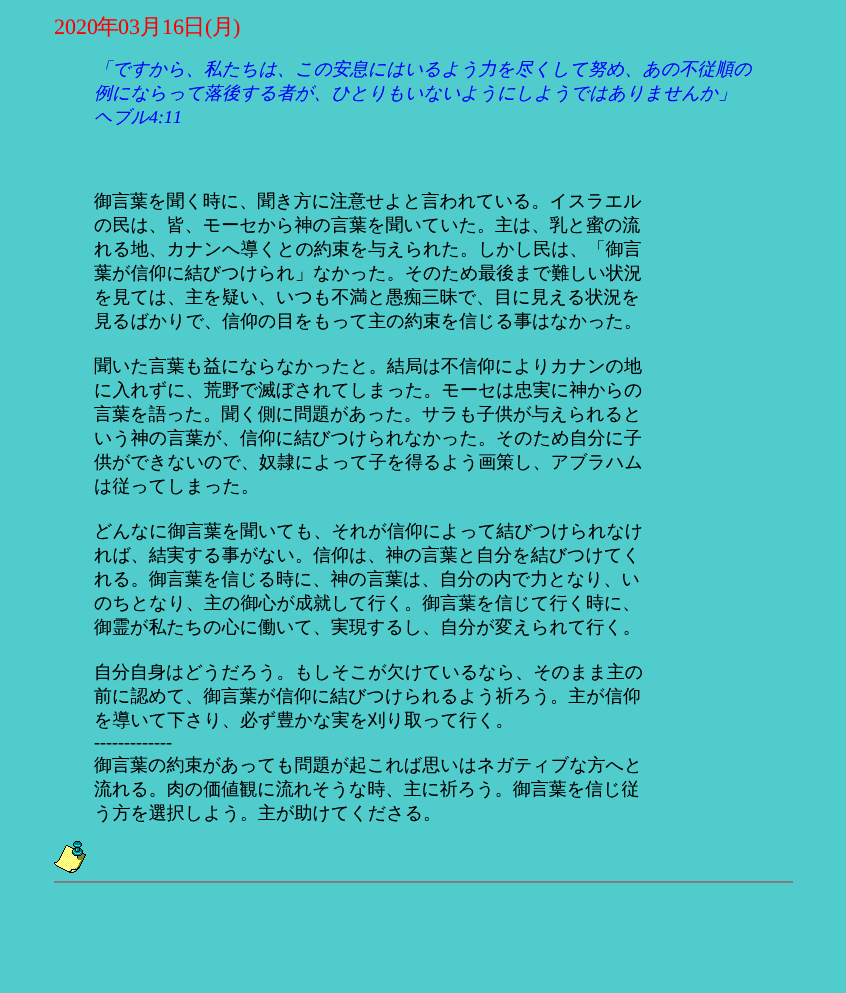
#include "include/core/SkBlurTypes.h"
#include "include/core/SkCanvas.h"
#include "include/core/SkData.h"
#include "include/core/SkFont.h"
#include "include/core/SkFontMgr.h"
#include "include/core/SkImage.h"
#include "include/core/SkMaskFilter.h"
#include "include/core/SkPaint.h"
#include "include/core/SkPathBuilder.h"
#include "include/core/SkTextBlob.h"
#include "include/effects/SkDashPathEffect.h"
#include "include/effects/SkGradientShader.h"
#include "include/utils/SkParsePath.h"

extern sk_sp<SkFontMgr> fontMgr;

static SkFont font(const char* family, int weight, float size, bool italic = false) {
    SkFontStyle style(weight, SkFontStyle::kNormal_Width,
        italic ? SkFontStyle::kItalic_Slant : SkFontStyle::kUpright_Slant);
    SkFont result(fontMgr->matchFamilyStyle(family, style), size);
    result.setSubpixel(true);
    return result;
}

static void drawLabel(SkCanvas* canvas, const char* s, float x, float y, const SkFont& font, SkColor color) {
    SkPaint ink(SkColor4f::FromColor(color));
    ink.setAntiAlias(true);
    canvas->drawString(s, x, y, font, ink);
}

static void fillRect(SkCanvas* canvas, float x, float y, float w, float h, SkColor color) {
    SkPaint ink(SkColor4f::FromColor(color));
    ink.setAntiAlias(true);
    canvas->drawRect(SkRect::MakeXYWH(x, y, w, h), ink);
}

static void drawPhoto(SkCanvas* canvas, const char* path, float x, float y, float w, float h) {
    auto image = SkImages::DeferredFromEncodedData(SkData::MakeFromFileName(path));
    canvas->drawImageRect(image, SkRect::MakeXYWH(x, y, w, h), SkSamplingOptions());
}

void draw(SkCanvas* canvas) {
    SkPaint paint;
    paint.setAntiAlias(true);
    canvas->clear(0xFF50CCCC);
    SkFont font1 = font("Liberation Serif", 400, 22);
    drawLabel(canvas, "2020", 54, 34, font1, 0xFFFF0000);
    SkFont font2 = font("WenQuanYi Zen Hei", 500, 22);
    drawLabel(canvas, "年", 97, 34, font2, 0xFFFF0000);
    drawLabel(canvas, "03", 118, 34, font1, 0xFFFF0000);
    drawLabel(canvas, "月", 140, 34, font2, 0xFFFF0000);
    drawLabel(canvas, "16", 162, 34, font1, 0xFFFF0000);
    drawLabel(canvas, "日", 183, 34, font2, 0xFFFF0000);
    drawLabel(canvas, "(", 205, 34, font1, 0xFFFF0000);
    drawLabel(canvas, "月", 212, 34, font2, 0xFFFF0000);
    drawLabel(canvas, ")", 233, 34, font1, 0xFFFF0000);
    SkFont font3 = font("WenQuanYi Zen Hei", 500, 18, true);
    drawLabel(canvas, "「ですから、私たちは、この安息にはいるよう力を尽くして努め、あの不従順の", 94, 75, font3, 0xFF0000FF);
    drawLabel(canvas, "例にならって落後する者が、ひとりもいないようにしようではありませんか」", 94, 99, font3, 0xFF0000FF);
    drawLabel(canvas, "ヘブル", 94, 123, font3, 0xFF0000FF);
    SkFont font4 = font("Liberation Serif", 400, 18, true);
    drawLabel(canvas, "4:11", 149, 123, font4, 0xFF0000FF);
    SkFont font5 = font("WenQuanYi Zen Hei", 500, 18);
    drawLabel(canvas, "御言葉を聞く時に、聞き方に注意せよと言われている。イスラエル", 94, 207, font5, 0xFF000000);
    drawLabel(canvas, "の民は、皆、モーセから神の言葉を聞いていた。主は、乳と蜜の流", 94, 231, font5, 0xFF000000);
    drawLabel(canvas, "れる地、カナンへ導くとの約束を与えられた。しかし民は、「御言", 94, 255, font5, 0xFF000000);
    drawLabel(canvas, "葉が信仰に結びつけられ」なかった。そのため最後まで難しい状況", 94, 279, font5, 0xFF000000);
    drawLabel(canvas, "を見ては、主を疑い、いつも不満と愚痴三昧で、目に見える状況を", 94, 303, font5, 0xFF000000);
    drawLabel(canvas, "見るばかりで、信仰の目をもって主の約束を信じる事はなかった。", 94, 327, font5, 0xFF000000);
    drawLabel(canvas, "聞いた言葉も益にならなかったと。結局は不信仰によりカナンの地", 94, 372, font5, 0xFF000000);
    drawLabel(canvas, "に入れずに、荒野で滅ぼされてしまった。モーセは忠実に神からの", 94, 396, font5, 0xFF000000);
    drawLabel(canvas, "言葉を語った。聞く側に問題があった。サラも子供が与えられると", 94, 420, font5, 0xFF000000);
    drawLabel(canvas, "いう神の言葉が、信仰に結びつけられなかった。そのため自分に子", 94, 444, font5, 0xFF000000);
    drawLabel(canvas, "供ができないので、奴隷によって子を得るよう画策し、アブラハム", 94, 468, font5, 0xFF000000);
    drawLabel(canvas, "は従ってしまった。", 94, 492, font5, 0xFF000000);
    drawLabel(canvas, "どんなに御言葉を聞いても、それが信仰によって結びつけられなけ", 94, 537, font5, 0xFF000000);
    drawLabel(canvas, "れば、結実する事がない。信仰は、神の言葉と自分を結びつけてく", 94, 561, font5, 0xFF000000);
    drawLabel(canvas, "れる。御言葉を信じる時に、神の言葉は、自分の内で力となり、い", 94, 585, font5, 0xFF000000);
    drawLabel(canvas, "のちとなり、主の御心が成就して行く。御言葉を信じて行く時に、", 94, 609, font5, 0xFF000000);
    drawLabel(canvas, "御霊が私たちの心に働いて、実現するし、自分が変えられて行く。", 94, 633, font5, 0xFF000000);
    drawLabel(canvas, "自分自身はどうだろう。もしそこが欠けているなら、そのまま主の", 94, 678, font5, 0xFF000000);
    drawLabel(canvas, "前に認めて、御言葉が信仰に結びつけられるよう祈ろう。主が信仰", 94, 702, font5, 0xFF000000);
    drawLabel(canvas, "を導いて下さり、必ず豊かな実を刈り取って行く。", 94, 726, font5, 0xFF000000);
    SkFont font6 = font("Liberation Serif", 400, 18);
    drawLabel(canvas, "-------------", 94, 748, font6, 0xFF000000);
    drawLabel(canvas, "御言葉の約束があっても問題が起これば思いはネガティブな方へと", 94, 771, font5, 0xFF000000);
    drawLabel(canvas, "流れる。肉の価値観に流れそうな時、主に祈ろう。御言葉を信じ従", 94, 795, font5, 0xFF000000);
    drawLabel(canvas, "う方を選択しよう。主が助けてくださる。", 94, 819, font5, 0xFF000000);
    drawPhoto(canvas, "assets/img1.png", 54, 841, 32, 32);
    fillRect(canvas, 54, 881, 739, 2, 0xFF808080);
}
